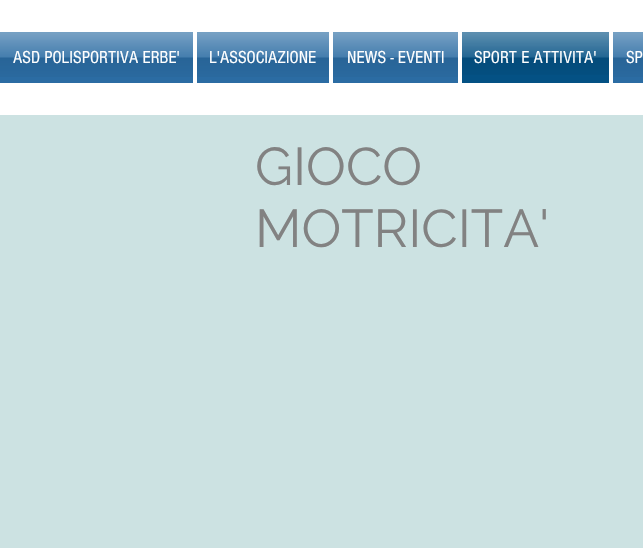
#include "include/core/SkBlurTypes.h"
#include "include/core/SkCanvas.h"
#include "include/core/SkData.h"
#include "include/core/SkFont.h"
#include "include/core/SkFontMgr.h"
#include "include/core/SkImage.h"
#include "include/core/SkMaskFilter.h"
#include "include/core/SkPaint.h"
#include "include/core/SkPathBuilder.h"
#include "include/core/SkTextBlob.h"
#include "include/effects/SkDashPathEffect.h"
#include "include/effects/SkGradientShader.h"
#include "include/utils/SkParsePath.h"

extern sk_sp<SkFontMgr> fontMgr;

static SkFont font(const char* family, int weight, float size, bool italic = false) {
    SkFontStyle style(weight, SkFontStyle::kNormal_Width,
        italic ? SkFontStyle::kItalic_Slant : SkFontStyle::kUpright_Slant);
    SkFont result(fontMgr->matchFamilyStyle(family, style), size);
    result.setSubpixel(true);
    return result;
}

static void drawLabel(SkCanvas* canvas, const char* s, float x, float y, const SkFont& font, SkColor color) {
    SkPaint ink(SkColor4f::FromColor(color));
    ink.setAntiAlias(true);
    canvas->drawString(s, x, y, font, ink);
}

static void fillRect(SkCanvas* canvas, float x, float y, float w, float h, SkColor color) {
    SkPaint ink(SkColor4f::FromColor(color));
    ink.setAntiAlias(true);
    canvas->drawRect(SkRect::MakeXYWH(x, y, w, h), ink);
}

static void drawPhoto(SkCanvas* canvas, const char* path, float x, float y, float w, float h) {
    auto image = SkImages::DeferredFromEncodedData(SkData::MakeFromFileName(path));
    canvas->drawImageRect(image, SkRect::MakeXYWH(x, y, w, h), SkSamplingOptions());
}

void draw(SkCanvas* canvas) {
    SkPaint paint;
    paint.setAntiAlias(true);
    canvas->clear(0xFFCCE2E2);
    fillRect(canvas, 0, 0, 643, 115, 0xFFFFFFFF);
    fillRect(canvas, 0, 32, 193, 51, 0xFF2B6CA3);
    drawPhoto(canvas, "assets/img1.png", 0, 32, 193, 45);
    SkFont font1 = font("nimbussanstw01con", 400, 18);
    drawLabel(canvas, "ASD POLISPORTIVA ERBE'", 13, 63, font1, 0xFFFFFFFF);
    fillRect(canvas, 197, 32, 132, 51, 0xFF2B6CA3);
    drawPhoto(canvas, "assets/img2.png", 197, 32, 132, 45);
    drawLabel(canvas, "L'ASSOCIAZIONE", 209, 63, font1, 0xFFFFFFFF);
    fillRect(canvas, 333, 32, 125, 51, 0xFF2B6CA3);
    drawPhoto(canvas, "assets/img3.png", 333, 32, 125, 45);
    drawLabel(canvas, "NEWS - EVENTI", 347, 63, font1, 0xFFFFFFFF);
    fillRect(canvas, 462, 32, 147, 51, 0xFF045184);
    drawPhoto(canvas, "assets/img4.png", 462, 32, 147, 43);
    drawLabel(canvas, "SPORT E ATTIVITA'", 474, 63, font1, 0xFFFFFFFF);
    fillRect(canvas, 613, 32, 30, 51, 0xFF2B6CA3);
    drawPhoto(canvas, "assets/img5.png", 613, 32, 30, 45);
    drawLabel(canvas, "SP", 626, 63, font1, 0xFFFFFFFF);
    SkFont font2 = font("Raleway", 400, 53);
    drawLabel(canvas, "GIOCO", 255, 185, font2, 0xFF828282);
    drawLabel(canvas, "MOTRICITA'", 255, 247, font2, 0xFF828282);
}
